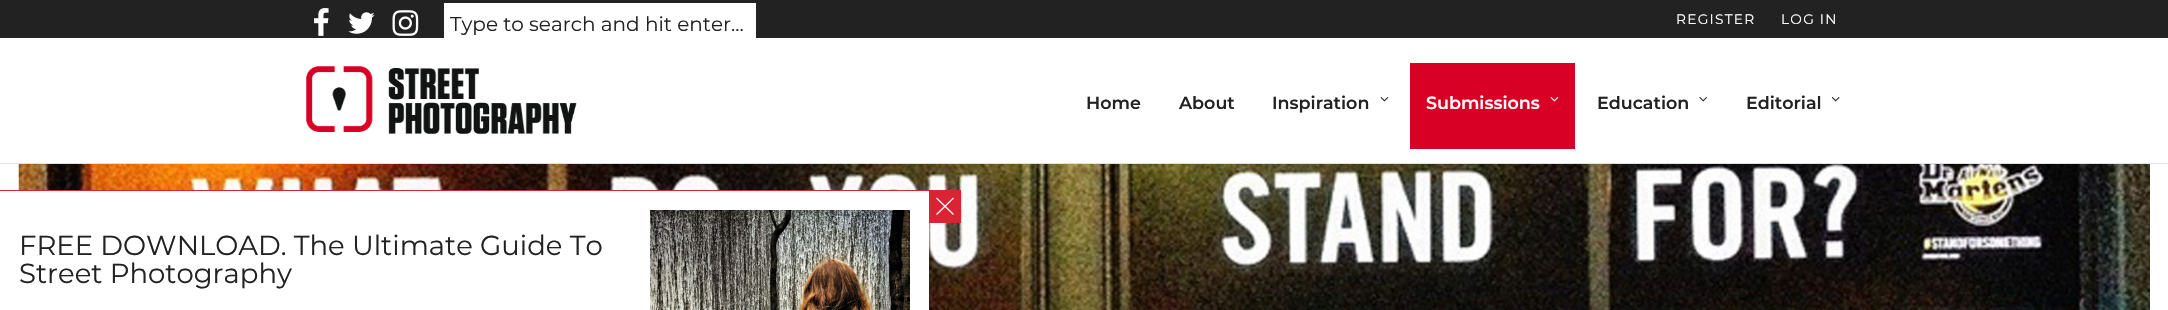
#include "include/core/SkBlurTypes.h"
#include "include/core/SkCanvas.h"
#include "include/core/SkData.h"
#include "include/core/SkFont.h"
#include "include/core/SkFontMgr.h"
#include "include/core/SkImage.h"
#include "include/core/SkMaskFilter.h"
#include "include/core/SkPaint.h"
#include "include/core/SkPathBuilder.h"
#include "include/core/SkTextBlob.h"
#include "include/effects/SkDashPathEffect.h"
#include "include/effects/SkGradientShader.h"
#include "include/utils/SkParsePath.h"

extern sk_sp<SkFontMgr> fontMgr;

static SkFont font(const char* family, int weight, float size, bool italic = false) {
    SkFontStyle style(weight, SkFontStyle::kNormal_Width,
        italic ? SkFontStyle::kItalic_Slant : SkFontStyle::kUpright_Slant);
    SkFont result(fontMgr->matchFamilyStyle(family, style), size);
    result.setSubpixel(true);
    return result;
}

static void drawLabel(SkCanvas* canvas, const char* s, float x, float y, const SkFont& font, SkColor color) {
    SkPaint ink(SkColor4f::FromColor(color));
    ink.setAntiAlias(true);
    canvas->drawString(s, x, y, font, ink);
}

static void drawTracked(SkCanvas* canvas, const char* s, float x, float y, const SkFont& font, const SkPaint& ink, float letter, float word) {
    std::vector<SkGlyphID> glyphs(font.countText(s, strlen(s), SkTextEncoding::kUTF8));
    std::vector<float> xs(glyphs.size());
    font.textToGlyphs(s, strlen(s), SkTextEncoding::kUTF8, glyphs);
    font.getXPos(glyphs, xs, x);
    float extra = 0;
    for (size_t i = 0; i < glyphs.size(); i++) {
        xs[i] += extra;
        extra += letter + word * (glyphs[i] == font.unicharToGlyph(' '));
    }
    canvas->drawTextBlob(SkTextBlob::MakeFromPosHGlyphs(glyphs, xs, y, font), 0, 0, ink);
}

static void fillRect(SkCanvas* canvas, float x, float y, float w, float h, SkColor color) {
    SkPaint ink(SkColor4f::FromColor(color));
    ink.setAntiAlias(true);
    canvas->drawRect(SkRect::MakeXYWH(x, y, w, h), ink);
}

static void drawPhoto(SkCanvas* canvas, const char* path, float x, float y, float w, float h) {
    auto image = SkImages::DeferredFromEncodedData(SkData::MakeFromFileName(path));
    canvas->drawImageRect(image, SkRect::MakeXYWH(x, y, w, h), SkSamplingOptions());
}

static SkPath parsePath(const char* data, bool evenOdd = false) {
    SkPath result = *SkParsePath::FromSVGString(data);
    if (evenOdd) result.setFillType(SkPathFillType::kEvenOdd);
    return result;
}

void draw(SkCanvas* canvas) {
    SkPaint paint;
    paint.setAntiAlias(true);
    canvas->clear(0xFFFFFFFF);
    fillRect(canvas, 0, 0, 2168, 38, 0xFF222222);
    drawPhoto(canvas, "assets/img1.png", 314, 8, 15, 28);
    drawPhoto(canvas, "assets/img2.png", 348, 12, 27, 22);
    drawPhoto(canvas, "assets/img3.png", 392, 10, 27, 26);
    fillRect(canvas, 444, 3, 312, 35, 0xFFFFFFFF);
    SkFont font1 = font("Montserrat", 400, 20);
    drawLabel(canvas, "Type to search and hit enter...", 450, 31, font1, 0xFF222222);
    SkFont font2 = font("Montserrat", 400, 13.75f);
    paint.setColor(0xFFFFFFFF);
    drawTracked(canvas, "REGISTER", 1676, 24, font2, paint, 1.25f, 0);
    drawTracked(canvas, "LOG IN", 1781, 24, font2, paint, 1.25f, 0);
    fillRect(canvas, 0, 163, 2168, 1, 0xFFE1E1E1);
    drawPhoto(canvas, "assets/img4.png", 306, 66, 271, 68);
    SkFont font3 = font("Montserrat", 600, 17.5f);
    drawLabel(canvas, "Home", 1086, 109, font3, 0xFF222222);
    drawLabel(canvas, "About", 1179, 109, font3, 0xFF222222);
    drawLabel(canvas, "Inspiration", 1272, 109, font3, 0xFF222222);
    drawPhoto(canvas, "assets/img5.png", 1380, 97, 9, 5);
    fillRect(canvas, 1410, 63, 165, 86, 0xFFD80025);
    drawLabel(canvas, "Submissions", 1426, 109, font3, 0xFFFFFFFF);
    drawPhoto(canvas, "assets/img6.png", 1550, 97, 9, 5);
    drawLabel(canvas, "Education", 1597, 109, font3, 0xFF222222);
    drawPhoto(canvas, "assets/img7.png", 1699, 97, 8, 5);
    drawLabel(canvas, "Editorial", 1746, 109, font3, 0xFF222222);
    drawPhoto(canvas, "assets/img8.png", 1831, 97, 9, 5);
    drawPhoto(canvas, "assets/img9.png", 18, 164, 2132, 146);
    fillRect(canvas, 18, 191, 911, 119, 0xFFFFFFFF);
    fillRect(canvas, 0, 190, 929, 1, 0xFFDA2333);
    fillRect(canvas, 929, 190, 32, 33, 0xFFDA2333);
    paint.setStroke(true);
    paint.setStrokeWidth(1.2f);
    canvas->drawPath(parsePath("M953.5 198L936.5 214.5M953.5 214.5L936.5 198"), paint);
    SkFont font4 = font("Montserrat", 400, 27.5f);
    drawLabel(canvas, "FREE DOWNLOAD. The Ultimate Guide To", 19, 255, font4, 0xFF222222);
    drawLabel(canvas, "Street Photography", 19, 283, font4, 0xFF222222);
    drawPhoto(canvas, "assets/img10.png", 650, 210, 260, 100);
}
